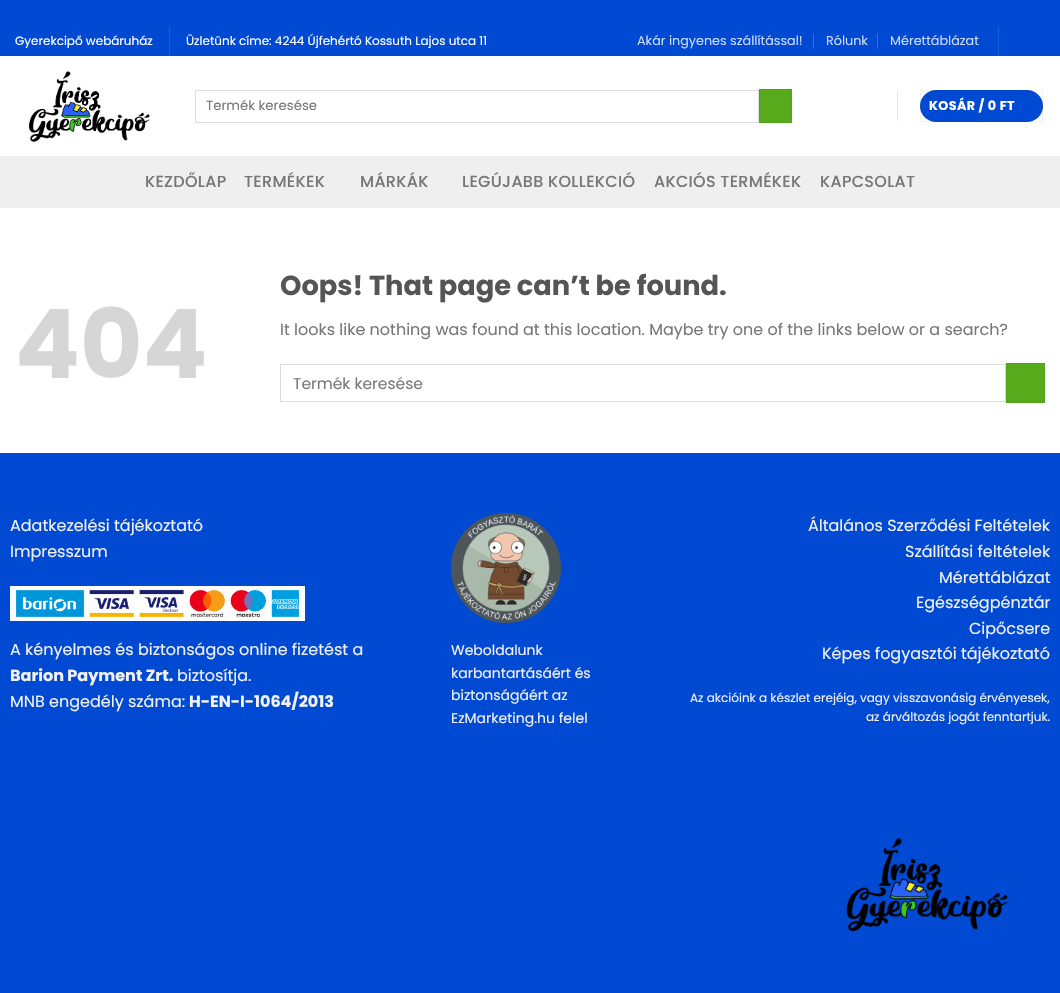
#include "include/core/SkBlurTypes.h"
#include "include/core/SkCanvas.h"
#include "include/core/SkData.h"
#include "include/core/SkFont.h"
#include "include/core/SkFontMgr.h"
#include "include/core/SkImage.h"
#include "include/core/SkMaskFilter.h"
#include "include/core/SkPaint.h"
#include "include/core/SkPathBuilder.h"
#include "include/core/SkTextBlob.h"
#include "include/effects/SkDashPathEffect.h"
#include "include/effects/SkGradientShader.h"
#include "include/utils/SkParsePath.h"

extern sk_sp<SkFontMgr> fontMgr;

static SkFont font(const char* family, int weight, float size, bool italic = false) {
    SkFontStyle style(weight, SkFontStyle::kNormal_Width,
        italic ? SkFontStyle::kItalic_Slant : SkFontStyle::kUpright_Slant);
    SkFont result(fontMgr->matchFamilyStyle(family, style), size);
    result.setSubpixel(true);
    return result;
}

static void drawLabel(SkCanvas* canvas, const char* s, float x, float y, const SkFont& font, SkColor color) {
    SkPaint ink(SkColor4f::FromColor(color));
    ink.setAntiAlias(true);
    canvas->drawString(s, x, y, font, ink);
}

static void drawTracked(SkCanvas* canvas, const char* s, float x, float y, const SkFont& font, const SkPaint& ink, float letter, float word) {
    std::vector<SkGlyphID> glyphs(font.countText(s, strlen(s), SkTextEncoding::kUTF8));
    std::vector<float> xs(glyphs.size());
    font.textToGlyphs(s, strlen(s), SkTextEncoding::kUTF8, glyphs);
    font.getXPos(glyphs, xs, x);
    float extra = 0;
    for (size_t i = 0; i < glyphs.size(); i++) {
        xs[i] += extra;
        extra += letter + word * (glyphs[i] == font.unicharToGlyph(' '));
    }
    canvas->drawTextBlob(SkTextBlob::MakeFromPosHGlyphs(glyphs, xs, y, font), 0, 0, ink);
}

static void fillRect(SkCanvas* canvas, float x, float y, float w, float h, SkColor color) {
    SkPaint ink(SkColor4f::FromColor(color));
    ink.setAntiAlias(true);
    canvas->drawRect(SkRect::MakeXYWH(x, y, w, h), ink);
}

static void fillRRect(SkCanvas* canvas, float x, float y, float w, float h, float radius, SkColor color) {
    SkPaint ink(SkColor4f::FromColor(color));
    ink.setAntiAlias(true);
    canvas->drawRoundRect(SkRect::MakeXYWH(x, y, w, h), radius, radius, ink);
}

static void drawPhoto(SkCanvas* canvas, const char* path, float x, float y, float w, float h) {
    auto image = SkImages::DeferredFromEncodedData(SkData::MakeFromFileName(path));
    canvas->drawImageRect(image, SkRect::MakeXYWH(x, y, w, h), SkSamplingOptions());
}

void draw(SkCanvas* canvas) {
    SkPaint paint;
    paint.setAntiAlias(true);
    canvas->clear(0xFF004AD3);
    fillRect(canvas, 0, 56, 1060, 397, 0xFFFFFFFF);
    SkFont font1 = font("Poppins", 400, 12);
    drawLabel(canvas, "Gyerekcipő webáruház", 15, 45, font1, 0xFFFFFFFF);
    fillRect(canvas, 169, 26, 1, 30, 0xFF1A5CD7);
    drawLabel(canvas, "Üzletünk címe: 4244 Újfehértó Kossuth Lajos utca 11", 186, 45, font1, 0xFFFFFFFF);
    SkFont font2 = font("Poppins", 400, 12.75f);
    drawLabel(canvas, "Akár ingyenes szállítással!", 637, 45, font2, 0xFFCCDBF6);
    fillRect(canvas, 813, 34, 1, 15, 0xFF336EDC);
    drawLabel(canvas, "Rólunk", 826, 45, font2, 0xFFCCDBF6);
    fillRect(canvas, 877, 34, 1, 15, 0xFF336EDC);
    drawLabel(canvas, "Mérettáblázat", 890, 45, font2, 0xFFCCDBF6);
    fillRect(canvas, 998, 26, 1, 30, 0xFF1A5CD7);
    drawPhoto(canvas, "assets/img1.png", 28, 71, 122, 71);
    paint.setStroke(true);
    paint.setStrokeWidth(1);
    paint.setColor(0xFFDDDDDD);
    canvas->drawRect(SkRect::MakeXYWH(195.5f, 90.5f, 563, 32), paint);
    SkFont font3 = font("Poppins", 400, 13.25f);
    drawLabel(canvas, "Termék keresése", 206, 110, font3, 0xFF777777);
    paint.setStroke(false);
    paint.setColor(0xFF57AA1C);
    canvas->drawRect(SkRect::MakeXYWH(759.5f, 89.5f, 32, 33), paint);
    paint.setStroke(true);
    paint.setColor(0xFF53A21B);
    canvas->drawRect(SkRect::MakeXYWH(759.5f, 89.5f, 32, 33), paint);
    fillRect(canvas, 897, 91, 1, 30, 0xFFE6E6E6);
    fillRRect(canvas, 920, 90, 123, 32, 16, 0xFF004AD3);
    paint.setColor(0x0D000000);
    canvas->drawRect(SkRect::MakeXYWH(920.5f, 90.5f, 122, 31), paint);
    SkFont font4 = font("Poppins", 700, 12.75f);
    paint.setStroke(false);
    paint.setColor(0xFFFFFFFF);
    drawTracked(canvas, "KOSÁR / 0 FT", 929, 110, font4, paint, 0.4f, 0);
    fillRect(canvas, 0, 156, 1060, 52, 0xFFEFEFEF);
    SkFont font5 = font("Poppins", 500, 16);
    paint.setColor(0xFF777777);
    drawTracked(canvas, "KEZDŐLAP", 145, 187, font5, paint, 0.3f, 0);
    drawTracked(canvas, "TERMÉKEK", 244, 187, font5, paint, 0.3f, 0);
    drawTracked(canvas, "MÁRKÁK", 360, 187, font5, paint, 0.3f, 0);
    drawTracked(canvas, "LEGÚJABB KOLLEKCIÓ", 462, 187, font5, paint, 0.3f, 0);
    drawTracked(canvas, "AKCIÓS TERMÉKEK", 654, 187, font5, paint, 0.3f, 0);
    drawTracked(canvas, "KAPCSOLAT", 820, 187, font5, paint, 0.3f, 0);
    SkFont font6 = font("Poppins", 700, 96);
    drawLabel(canvas, "404", 15, 378, font6, 0xFFD6D6D6);
    SkFont font7 = font("Poppins", 700, 27.25f);
    drawLabel(canvas, "Oops! That page can’t be found.", 280, 295, font7, 0xFF555555);
    SkFont font8 = font("Poppins", 400, 16);
    drawLabel(canvas, "It looks like nothing was found at this location. Maybe try one of the links below or a search?", 280, 335, font8, 0xFF777777);
    paint.setStroke(true);
    paint.setColor(0xFFDDDDDD);
    canvas->drawRect(SkRect::MakeXYWH(280.5f, 364.5f, 725, 37), paint);
    SkFont font9 = font("Poppins", 400, 15.5f);
    drawLabel(canvas, "Termék keresése", 293, 389, font9, 0xFF777777);
    paint.setStroke(false);
    paint.setColor(0xFF57AA1C);
    canvas->drawRect(SkRect::MakeXYWH(1006.5f, 363.5f, 38, 39), paint);
    paint.setStroke(true);
    paint.setColor(0xFF53A21B);
    canvas->drawRect(SkRect::MakeXYWH(1006.5f, 363.5f, 38, 39), paint);
    drawLabel(canvas, "Adatkezelési tájékoztató", 10, 531, font8, 0xFFF1F1F1);
    drawLabel(canvas, "Impresszum", 10, 557, font8, 0xFFF1F1F1);
    drawPhoto(canvas, "assets/img2.png", 10, 586, 295, 35);
    drawLabel(canvas, "A kényelmes és biztonságos online fizetést a", 10, 655, font8, 0xFFF1F1F1);
    SkFont font10 = font("Poppins", 700, 16);
    drawLabel(canvas, "Barion Payment Zrt.", 10, 681, font10, 0xFFF1F1F1);
    drawLabel(canvas, "biztosítja.", 177, 681, font8, 0xFFF1F1F1);
    drawLabel(canvas, "MNB engedély száma:", 10, 707, font8, 0xFFF1F1F1);
    drawLabel(canvas, "H-EN-I-1064/2013", 189, 707, font10, 0xFFF1F1F1);
    drawPhoto(canvas, "assets/img3.png", 451, 513, 110, 110);
    SkFont font11 = font("Poppins", 400, 14);
    drawLabel(canvas, "Weboldalunk", 451, 655, font11, 0xFFF1F1F1);
    drawLabel(canvas, "karbantartásáért és", 451, 678, font11, 0xFFF1F1F1);
    drawLabel(canvas, "biztonságáért az", 451, 700, font11, 0xFFF1F1F1);
    drawLabel(canvas, "EzMarketing.hu felel", 451, 723, font11, 0xFFF1F1F1);
    drawLabel(canvas, "Általános Szerződési Feltételek", 808, 531, font8, 0xFFF1F1F1);
    drawLabel(canvas, "Szállítási feltételek", 905, 557, font8, 0xFFF1F1F1);
    drawLabel(canvas, "Mérettáblázat", 939, 583, font8, 0xFFF1F1F1);
    drawLabel(canvas, "Egészségpénztár", 916, 608, font8, 0xFFF1F1F1);
    drawLabel(canvas, "Cipőcsere", 969, 634, font8, 0xFFF1F1F1);
    drawLabel(canvas, "Képes fogyasztói tájékoztató", 822, 659, font8, 0xFFF1F1F1);
    drawLabel(canvas, "Az akcióink a készlet erejéig, vagy visszavonásig érvényesek,", 690, 702, font1, 0xFFF1F1F1);
    drawLabel(canvas, "az árváltozás jogát fenntartjuk.", 866, 721, font1, 0xFFF1F1F1);
    drawPhoto(canvas, "assets/img4.png", 846, 837, 162, 95);
}
